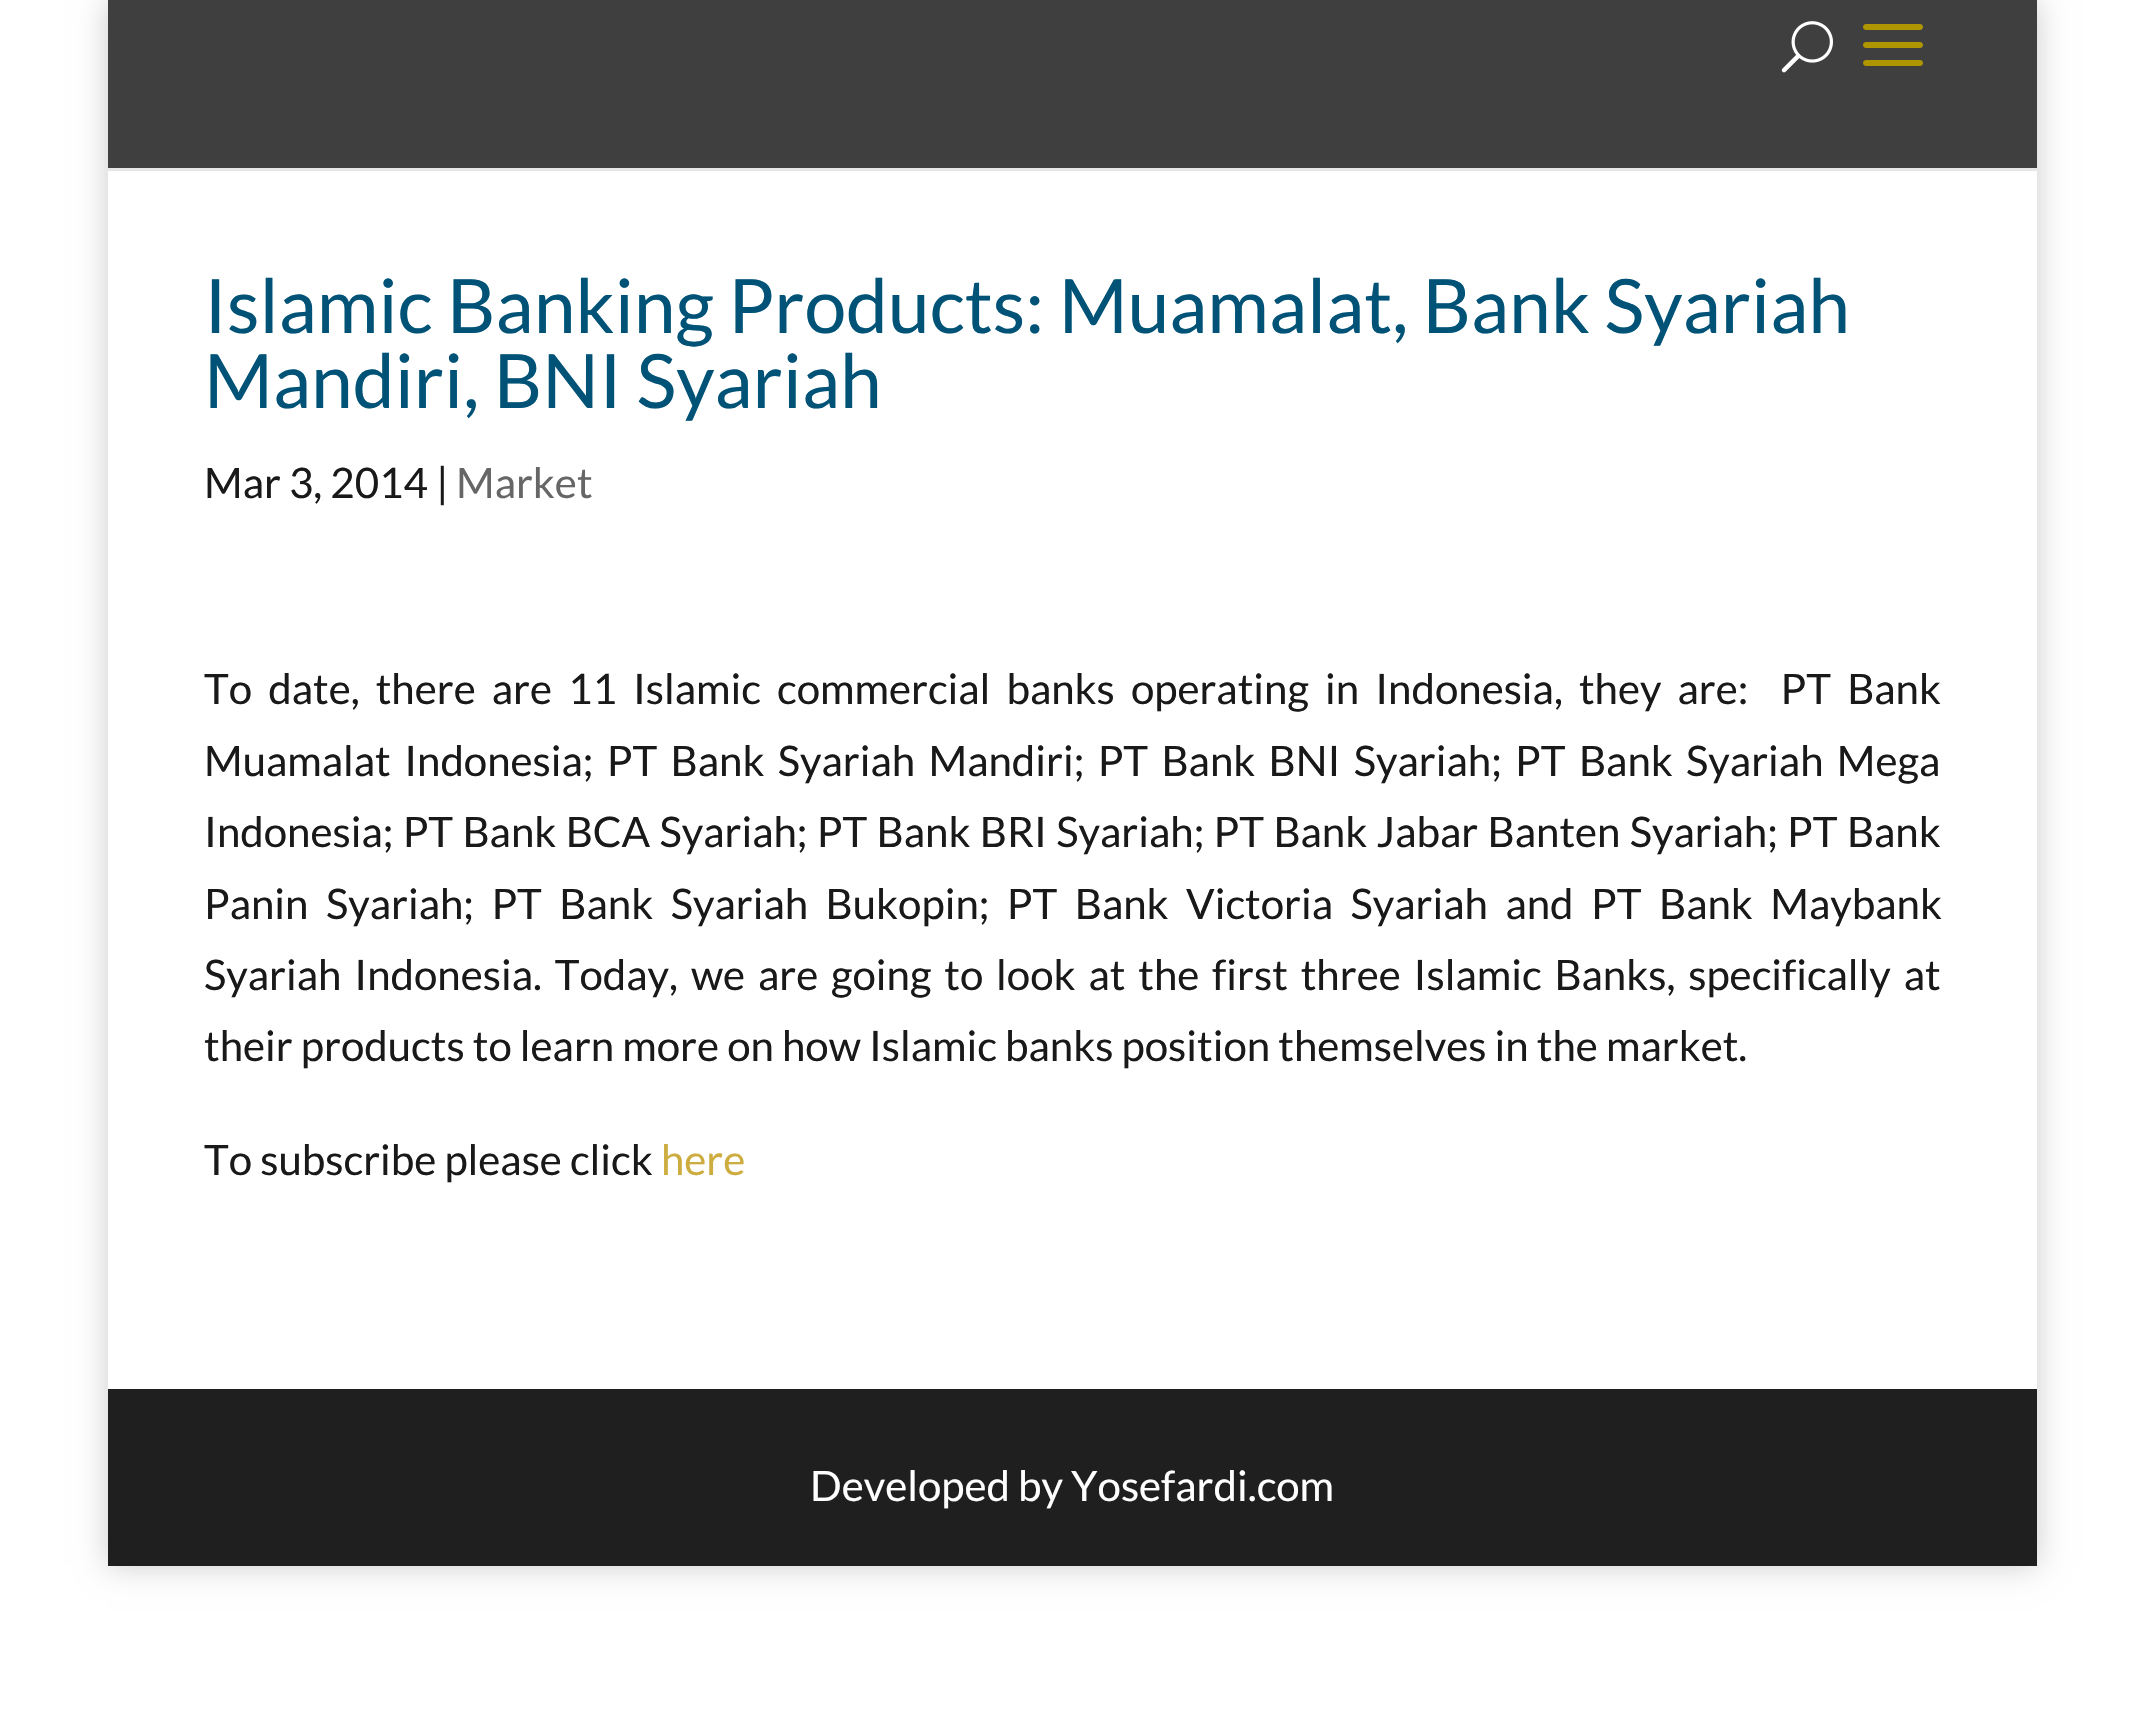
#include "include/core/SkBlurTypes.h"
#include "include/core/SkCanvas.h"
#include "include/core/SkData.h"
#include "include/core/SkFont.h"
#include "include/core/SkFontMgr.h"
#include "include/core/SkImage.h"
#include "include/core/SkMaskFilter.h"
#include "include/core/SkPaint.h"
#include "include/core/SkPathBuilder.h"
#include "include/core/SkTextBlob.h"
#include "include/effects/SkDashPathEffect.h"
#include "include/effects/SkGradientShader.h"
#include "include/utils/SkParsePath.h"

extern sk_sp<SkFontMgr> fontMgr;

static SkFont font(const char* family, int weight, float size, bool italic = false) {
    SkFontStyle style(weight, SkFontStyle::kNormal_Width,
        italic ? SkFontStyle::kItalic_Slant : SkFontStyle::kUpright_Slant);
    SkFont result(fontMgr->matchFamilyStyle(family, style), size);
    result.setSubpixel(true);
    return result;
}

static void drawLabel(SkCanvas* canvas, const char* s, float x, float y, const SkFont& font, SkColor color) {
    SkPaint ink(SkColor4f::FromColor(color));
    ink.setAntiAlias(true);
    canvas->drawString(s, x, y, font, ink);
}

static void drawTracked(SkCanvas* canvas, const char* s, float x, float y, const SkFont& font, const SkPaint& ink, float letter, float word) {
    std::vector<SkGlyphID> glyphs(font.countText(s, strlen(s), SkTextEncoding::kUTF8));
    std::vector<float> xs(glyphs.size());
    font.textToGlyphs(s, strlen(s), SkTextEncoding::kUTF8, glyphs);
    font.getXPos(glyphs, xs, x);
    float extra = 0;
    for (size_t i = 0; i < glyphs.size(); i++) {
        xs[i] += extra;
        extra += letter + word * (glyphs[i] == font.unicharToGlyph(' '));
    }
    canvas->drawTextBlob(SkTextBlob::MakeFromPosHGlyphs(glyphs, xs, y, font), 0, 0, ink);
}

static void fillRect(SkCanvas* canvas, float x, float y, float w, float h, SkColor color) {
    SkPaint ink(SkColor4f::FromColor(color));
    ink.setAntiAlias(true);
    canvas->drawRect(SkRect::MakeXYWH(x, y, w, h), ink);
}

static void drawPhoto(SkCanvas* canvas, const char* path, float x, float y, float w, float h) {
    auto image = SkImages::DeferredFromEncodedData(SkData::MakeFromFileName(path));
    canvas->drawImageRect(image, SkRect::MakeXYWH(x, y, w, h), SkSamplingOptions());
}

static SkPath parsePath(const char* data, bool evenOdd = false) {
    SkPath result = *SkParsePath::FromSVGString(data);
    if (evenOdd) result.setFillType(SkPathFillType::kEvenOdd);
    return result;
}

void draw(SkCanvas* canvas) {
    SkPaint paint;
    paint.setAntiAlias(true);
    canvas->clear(0xFFFFFFFF);
    canvas->save();
    canvas->clipPath(parsePath("M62 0H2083V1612H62ZM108 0H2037V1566H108Z", true), true);
    paint.setColor(0x33000000);
    paint.setMaskFilter(SkMaskFilter::MakeBlur(kNormal_SkBlurStyle, 15));
    canvas->drawRect(SkRect::MakeXYWH(108, 0, 1929, 1566), paint);
    paint.setMaskFilter(nullptr);
    canvas->restore();
    fillRect(canvas, 108, 168, 1929, 3, 0xFFE6E6E6);
    fillRect(canvas, 108, 0, 1929, 168, 0xFF3F3F3F);
    drawPhoto(canvas, "assets/img1.png", 1781, 21, 52, 52);
    drawPhoto(canvas, "assets/img2.png", 1863, 24, 60, 42);
    SkFont font1 = font("Lato", 400, 75);
    drawLabel(canvas, "Islamic Banking Products: Muamalat, Bank Syariah", 204, 333, font1, 0xFF005377);
    drawLabel(canvas, "Mandiri, BNI Syariah", 204, 408, font1, 0xFF005377);
    SkFont font2 = font("Lato", 400, 42);
    drawLabel(canvas, "Mar 3, 2014 |", 204, 498, font2, 0xFF191919);
    drawLabel(canvas, "Market", 456, 498, font2, 0xFF666666);
    paint.setColor(0xFF191919);
    drawTracked(canvas, "To date, there are 11 Islamic commercial banks operating in Indonesia, they are:  PT Bank", 204, 704, font2, paint, 0, 8);
    drawTracked(canvas, "Muamalat Indonesia; PT Bank Syariah Mandiri; PT Bank BNI Syariah; PT Bank Syariah Mega", 204, 776, font2, paint, 0, 5.25f);
    drawTracked(canvas, "Indonesia; PT Bank BCA Syariah; PT Bank BRI Syariah; PT Bank Jabar Banten Syariah; PT Bank", 204, 847, font2, paint, 0, 1.25f);
    drawTracked(canvas, "Panin Syariah; PT Bank Syariah Bukopin; PT Bank Victoria Syariah and PT Bank Maybank", 204, 919, font2, paint, 0, 9.4f);
    drawTracked(canvas, "Syariah Indonesia. Today, we are going to look at the first three Islamic Banks, specifically at", 204, 990, font2, paint, 0, 4.75f);
    drawLabel(canvas, "their products to learn more on how Islamic banks position themselves in the market.", 204, 1061, font2, 0xFF191919);
    drawLabel(canvas, "To subscribe please click", 204, 1175, font2, 0xFF191919);
    drawLabel(canvas, "here", 661, 1175, font2, 0xFFCEAD40);
    fillRect(canvas, 108, 1389, 1929, 177, 0xFF1F1F1F);
    drawLabel(canvas, "Developed by Yosefardi.com", 810, 1501, font2, 0xFFFFFFFF);
}
